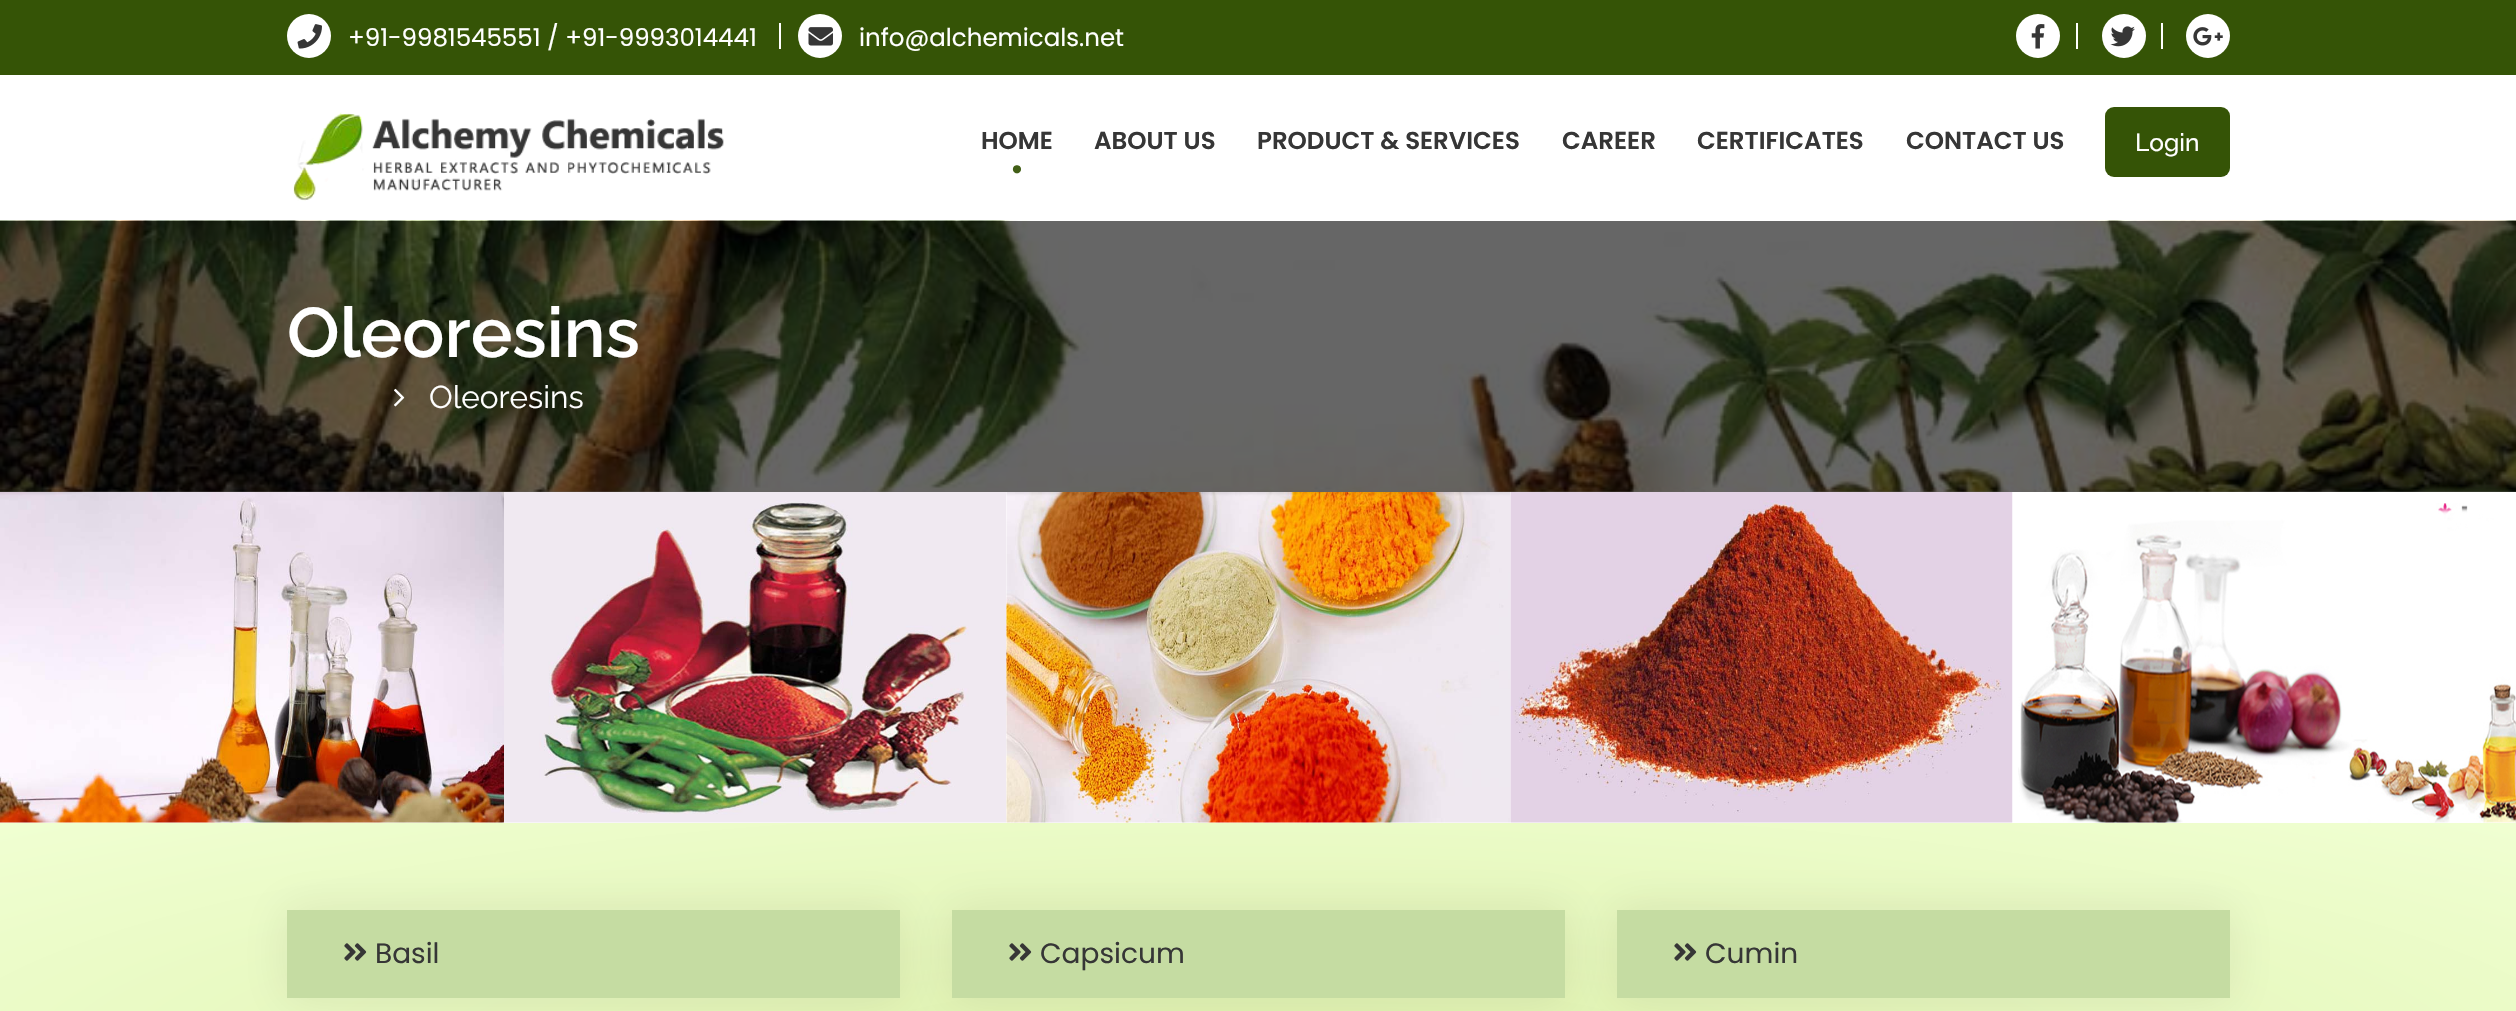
#include "include/core/SkBlurTypes.h"
#include "include/core/SkCanvas.h"
#include "include/core/SkData.h"
#include "include/core/SkFont.h"
#include "include/core/SkFontMgr.h"
#include "include/core/SkImage.h"
#include "include/core/SkMaskFilter.h"
#include "include/core/SkPaint.h"
#include "include/core/SkPathBuilder.h"
#include "include/core/SkTextBlob.h"
#include "include/effects/SkDashPathEffect.h"
#include "include/effects/SkGradientShader.h"
#include "include/utils/SkParsePath.h"

extern sk_sp<SkFontMgr> fontMgr;

static SkFont font(const char* family, int weight, float size, bool italic = false) {
    SkFontStyle style(weight, SkFontStyle::kNormal_Width,
        italic ? SkFontStyle::kItalic_Slant : SkFontStyle::kUpright_Slant);
    SkFont result(fontMgr->matchFamilyStyle(family, style), size);
    result.setSubpixel(true);
    return result;
}

static void drawLabel(SkCanvas* canvas, const char* s, float x, float y, const SkFont& font, SkColor color) {
    SkPaint ink(SkColor4f::FromColor(color));
    ink.setAntiAlias(true);
    canvas->drawString(s, x, y, font, ink);
}

static void fillRect(SkCanvas* canvas, float x, float y, float w, float h, SkColor color) {
    SkPaint ink(SkColor4f::FromColor(color));
    ink.setAntiAlias(true);
    canvas->drawRect(SkRect::MakeXYWH(x, y, w, h), ink);
}

static void fillRRect(SkCanvas* canvas, float x, float y, float w, float h, float radius, SkColor color) {
    SkPaint ink(SkColor4f::FromColor(color));
    ink.setAntiAlias(true);
    canvas->drawRoundRect(SkRect::MakeXYWH(x, y, w, h), radius, radius, ink);
}

static void drawPhoto(SkCanvas* canvas, const char* path, float x, float y, float w, float h) {
    auto image = SkImages::DeferredFromEncodedData(SkData::MakeFromFileName(path));
    canvas->drawImageRect(image, SkRect::MakeXYWH(x, y, w, h), SkSamplingOptions());
}

void draw(SkCanvas* canvas) {
    SkPaint paint;
    paint.setAntiAlias(true);
    canvas->clear(0xFFFFFFFF);
    fillRect(canvas, 0, 0, 2516, 75, 0xFF355406);
    paint.setColor(0xFFFFFFFF);
    canvas->drawCircle(309, 36, 22, paint);
    drawPhoto(canvas, "assets/img1.png", 297, 24, 25, 25);
    SkFont font1 = font("Poppins", 400, 24.5f);
    drawLabel(canvas, "+91-9981545551 / +91-9993014441", 348, 46, font1, 0xFFFFFFFF);
    fillRect(canvas, 779, 23, 2, 26, 0xFFFFFFFF);
    canvas->drawCircle(820, 36, 22, paint);
    drawPhoto(canvas, "assets/img2.png", 808, 27, 25, 19);
    drawLabel(canvas, "info@alchemicals.net", 859, 46, font1, 0xFFFFFFFF);
    canvas->drawCircle(2038, 36, 22, paint);
    drawPhoto(canvas, "assets/img3.png", 2031, 24, 14, 25);
    fillRect(canvas, 2076, 23, 2, 26, 0xFFFFFFFF);
    canvas->drawCircle(2124, 36, 22, paint);
    drawPhoto(canvas, "assets/img4.png", 2110, 26, 25, 21);
    fillRect(canvas, 2161, 23, 2, 26, 0xFFFFFFFF);
    canvas->drawCircle(2208, 36, 22, paint);
    drawPhoto(canvas, "assets/img5.png", 2193, 27, 30, 19);
    drawPhoto(canvas, "assets/img6.png", 293, 112, 431, 89);
    SkFont font2 = font("Poppins", 600, 24.5f);
    drawLabel(canvas, "HOME", 981, 149, font2, 0xFF363636);
    SkFont font3 = font("Poppins", 600, 29);
    drawLabel(canvas, "•", 1010, 179, font3, 0xFF425F17);
    drawLabel(canvas, "ABOUT US", 1094, 149, font2, 0xFF363636);
    drawLabel(canvas, "PRODUCT & SERVICES", 1257, 149, font2, 0xFF363636);
    drawLabel(canvas, "CAREER", 1562, 149, font2, 0xFF363636);
    drawLabel(canvas, "CERTIFICATES", 1697, 149, font2, 0xFF363636);
    drawLabel(canvas, "CONTACT US", 1906, 149, font2, 0xFF363636);
    fillRRect(canvas, 2105, 107, 125, 70, 9, 0xFF355406);
    SkFont font4 = font("Raleway", 500, 24.5f);
    drawLabel(canvas, "Login", 2135, 151, font4, 0xFFFFFFFF);
    drawPhoto(canvas, "assets/img9.png", 0, 491, 504, 332);
    drawPhoto(canvas, "assets/img11.png", 1006, 491, 504, 332);
    drawPhoto(canvas, "assets/img7.png", 0, 220, 2516, 272);
    fillRect(canvas, 0, 221, 2516, 271, 0x99000000);
    SkFont font5 = font("Raleway", 600, 70);
    drawLabel(canvas, "Oleoresins", 287, 357, font5, 0xFFFFFFFF);
    drawPhoto(canvas, "assets/img8.png", 394, 388, 11, 19);
    SkFont font6 = font("Raleway", 400, 31.5f);
    drawLabel(canvas, "Oleoresins", 429, 408, font6, 0xFFFFFFFF);
    drawPhoto(canvas, "assets/img10.png", 504, 492, 502, 331);
    drawPhoto(canvas, "assets/img12.png", 1510, 492, 503, 331);
    drawPhoto(canvas, "assets/img13.png", 2018, 503, 498, 320);
    {
        const SkColor colors[] = {0xFFDEF1AC, 0xFFF0FFD2};
        const float stops[] = {0, 1};
        SkMatrix m = SkMatrix::Translate(1258, 1063).preScale(1779, 340);
        paint.setShader(SkGradientShader::MakeRadial({0, 0}, 1, colors, stops, 2, SkTileMode::kClamp, 0, &m));
        paint.setAlpha(255);
    }
    canvas->drawRect(SkRect::MakeXYWH(0, 823, 2516, 188), paint);
    paint.setShader(nullptr);
    paint.setColor(0x141A1A1A);
    paint.setMaskFilter(SkMaskFilter::MakeBlur(kNormal_SkBlurStyle, 23.5f));
    canvas->drawRect(SkRect::MakeXYWH(284, 907, 619, 94), paint);
    paint.setMaskFilter(nullptr);
    fillRect(canvas, 287, 910, 613, 88, 0xFFC5DCA2);
    drawPhoto(canvas, "assets/img14.png", 344, 943, 23, 18);
    SkFont font7 = font("Poppins", 400, 28);
    drawLabel(canvas, "Basil", 375, 963, font7, 0xFF363636);
    paint.setMaskFilter(SkMaskFilter::MakeBlur(kNormal_SkBlurStyle, 23.5f));
    canvas->drawRect(SkRect::MakeXYWH(949, 907, 619, 94), paint);
    paint.setMaskFilter(nullptr);
    fillRect(canvas, 952, 910, 613, 88, 0xFFC5DCA2);
    drawPhoto(canvas, "assets/img14.png", 1009, 943, 23, 18);
    drawLabel(canvas, "Capsicum", 1040, 963, font7, 0xFF363636);
    paint.setMaskFilter(SkMaskFilter::MakeBlur(kNormal_SkBlurStyle, 23.5f));
    canvas->drawRect(SkRect::MakeXYWH(1614, 907, 619, 94), paint);
    paint.setMaskFilter(nullptr);
    fillRect(canvas, 1617, 910, 613, 88, 0xFFC5DCA2);
    drawPhoto(canvas, "assets/img14.png", 1674, 943, 23, 18);
    drawLabel(canvas, "Cumin", 1705, 963, font7, 0xFF363636);
}
